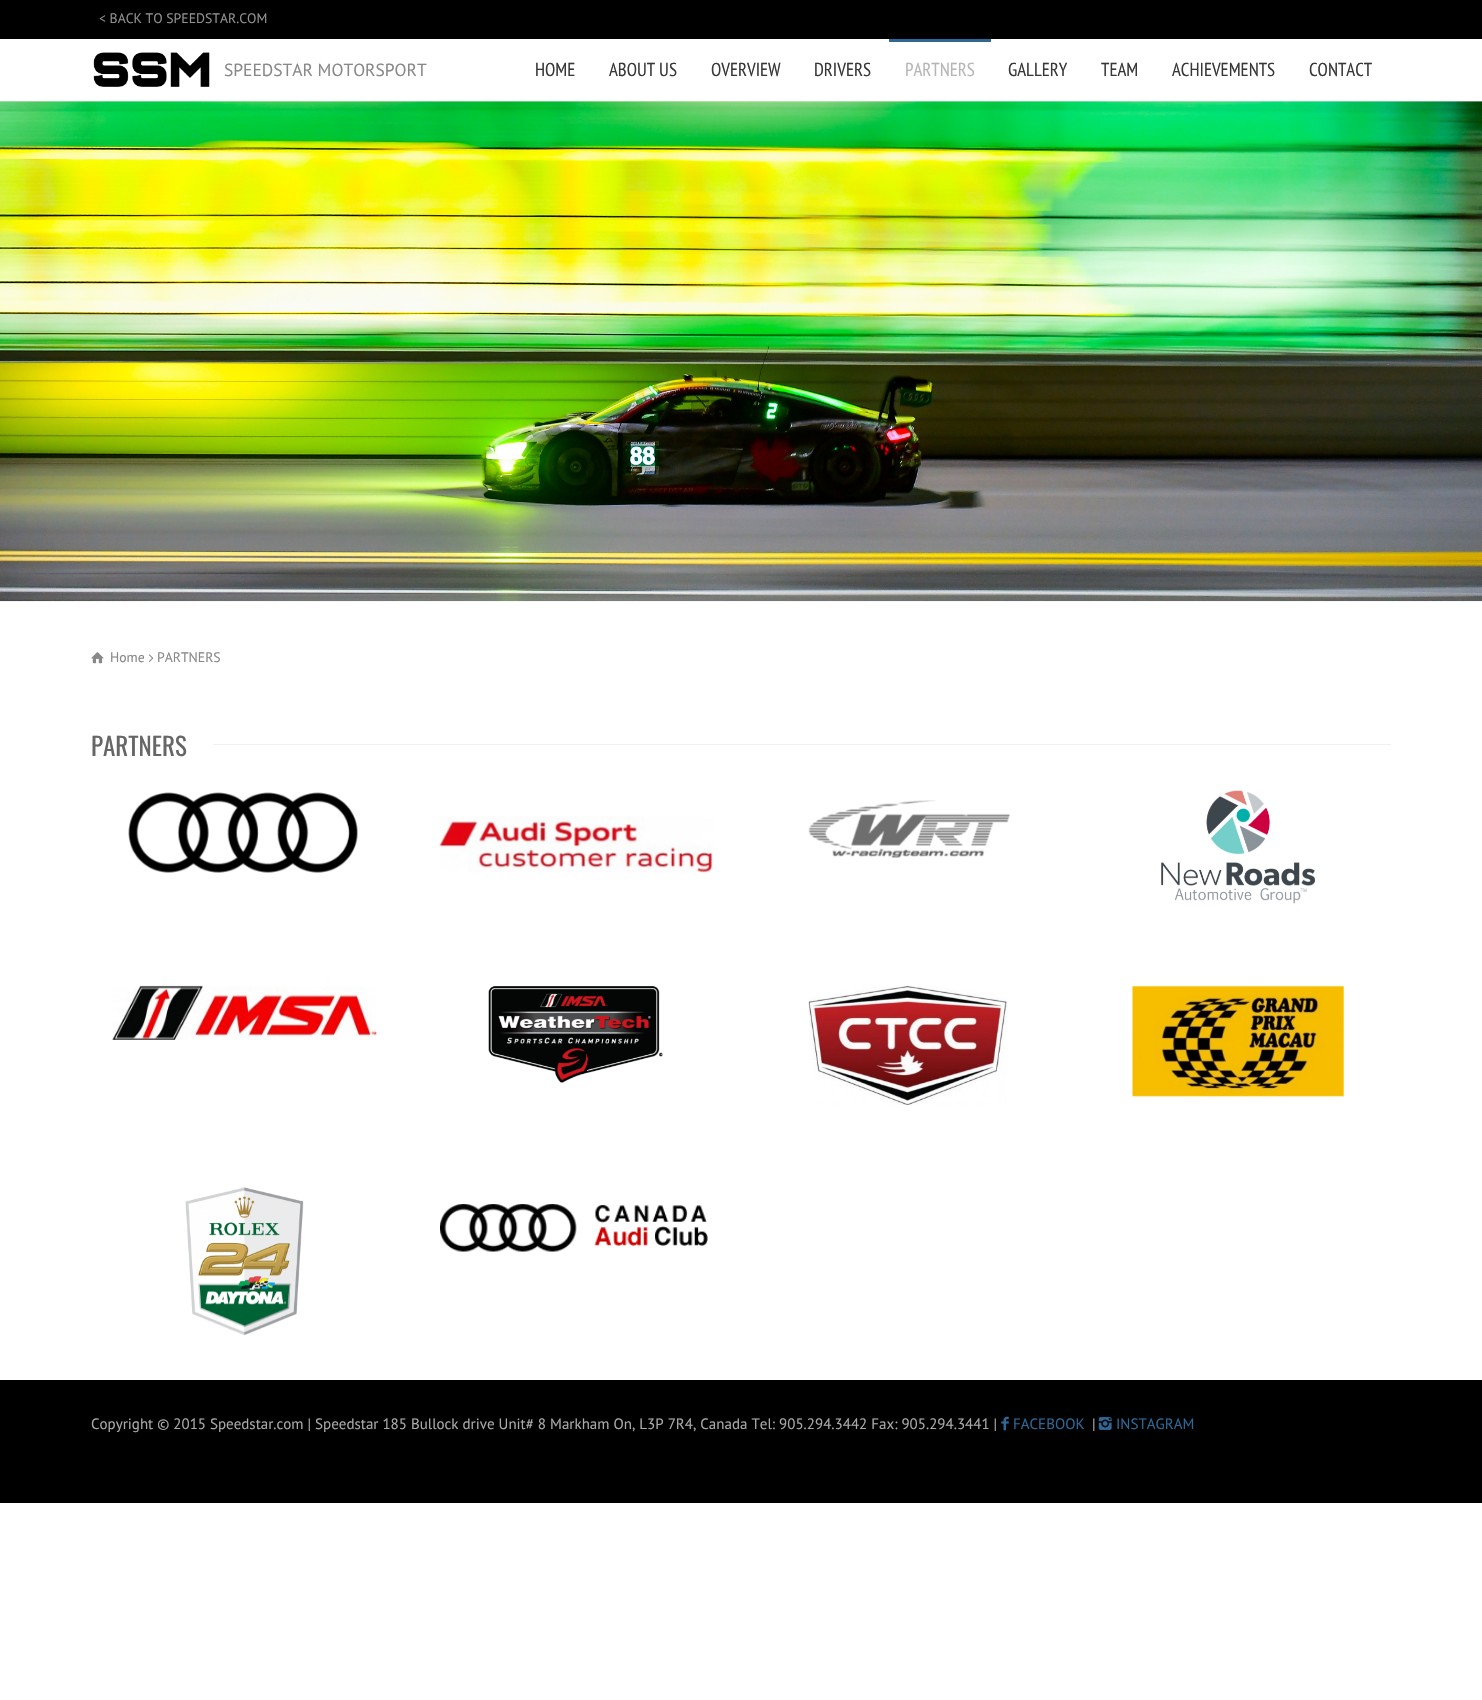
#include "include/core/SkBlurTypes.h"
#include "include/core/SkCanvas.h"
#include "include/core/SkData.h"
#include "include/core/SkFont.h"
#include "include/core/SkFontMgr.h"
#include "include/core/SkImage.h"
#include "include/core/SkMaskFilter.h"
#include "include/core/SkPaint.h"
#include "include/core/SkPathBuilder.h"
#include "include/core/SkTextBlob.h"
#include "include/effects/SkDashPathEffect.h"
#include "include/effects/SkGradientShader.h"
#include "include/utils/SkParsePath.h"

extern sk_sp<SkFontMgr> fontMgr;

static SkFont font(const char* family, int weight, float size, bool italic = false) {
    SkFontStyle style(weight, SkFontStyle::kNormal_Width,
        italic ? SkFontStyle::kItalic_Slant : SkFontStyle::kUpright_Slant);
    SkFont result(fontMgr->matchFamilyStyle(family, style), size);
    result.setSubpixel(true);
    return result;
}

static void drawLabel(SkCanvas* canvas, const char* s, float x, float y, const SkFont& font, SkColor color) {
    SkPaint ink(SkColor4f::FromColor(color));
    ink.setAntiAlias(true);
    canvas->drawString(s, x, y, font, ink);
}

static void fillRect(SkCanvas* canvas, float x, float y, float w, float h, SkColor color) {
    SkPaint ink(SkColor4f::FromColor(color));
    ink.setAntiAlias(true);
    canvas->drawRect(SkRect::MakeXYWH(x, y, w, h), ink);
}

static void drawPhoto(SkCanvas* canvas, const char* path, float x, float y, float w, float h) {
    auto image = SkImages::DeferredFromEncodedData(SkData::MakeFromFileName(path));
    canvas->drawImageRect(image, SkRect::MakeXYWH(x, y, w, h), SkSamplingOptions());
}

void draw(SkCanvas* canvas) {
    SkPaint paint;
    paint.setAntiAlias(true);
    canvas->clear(0xFFFFFFFF);
    fillRect(canvas, 0, 0, 1482, 39, 0xFF000000);
    SkFont font1 = font("PT Sans", 400, 13.75f);
    drawLabel(canvas, "< BACK TO SPEEDSTAR.COM", 99, 23, font1, 0xFF919191);
    drawPhoto(canvas, "assets/img1.png", 93, 52, 117, 35);
    SkFont font2 = font("PT Sans", 400, 17.5f);
    drawLabel(canvas, "SPEEDSTAR MOTORSPORT", 224, 76, font2, 0xFF888888);
    SkFont font3 = font("PT Sans Narrow", 400, 18.75f);
    drawLabel(canvas, "HOME", 535, 76, font3, 0xFF373737);
    drawLabel(canvas, "ABOUT US", 609, 76, font3, 0xFF373737);
    drawLabel(canvas, "OVERVIEW", 711, 76, font3, 0xFF373737);
    drawLabel(canvas, "DRIVERS", 814, 76, font3, 0xFF373737);
    fillRect(canvas, 889, 39, 102, 3, 0xFF2D6896);
    drawLabel(canvas, "PARTNERS", 905, 76, font3, 0xFFB6B6B6);
    drawLabel(canvas, "GALLERY", 1008, 76, font3, 0xFF373737);
    drawLabel(canvas, "TEAM", 1101, 76, font3, 0xFF373737);
    drawLabel(canvas, "ACHIEVEMENTS", 1172, 76, font3, 0xFF373737);
    drawLabel(canvas, "CONTACT", 1309, 76, font3, 0xFF373737);
    fillRect(canvas, 0, 101, 1482, 1, 0xFFE9E9E9);
    drawPhoto(canvas, "assets/img2.png", 0, 101, 1482, 501);
    drawPhoto(canvas, "assets/img3.png", 91, 652, 13, 12);
    drawLabel(canvas, "Home", 110, 662, font1, 0xFF888888);
    drawPhoto(canvas, "assets/img4.png", 148, 654, 6, 8);
    drawLabel(canvas, "PARTNERS", 157, 662, font1, 0xFF888888);
    SkFont font4 = font("Oswald", 400, 25);
    drawLabel(canvas, "PARTNERS", 91, 756, font4, 0xFF666666);
    fillRect(canvas, 213, 744, 1178, 1, 0xFFF0F0F0);
    drawPhoto(canvas, "assets/img5.png", 128, 792, 230, 81);
    drawPhoto(canvas, "assets/img6.png", 439, 816, 274, 57);
    drawPhoto(canvas, "assets/img7.png", 808, 800, 202, 58);
    drawPhoto(canvas, "assets/img8.png", 1161, 790, 154, 114);
    drawPhoto(canvas, "assets/img9.png", 112, 985, 265, 55);
    drawPhoto(canvas, "assets/img10.png", 488, 986, 175, 97);
    drawPhoto(canvas, "assets/img11.png", 808, 985, 199, 120);
    drawPhoto(canvas, "assets/img12.png", 1132, 985, 212, 112);
    drawPhoto(canvas, "assets/img13.png", 185, 1187, 119, 148);
    drawPhoto(canvas, "assets/img14.png", 440, 1204, 268, 48);
    fillRect(canvas, 0, 1380, 1482, 123, 0xFF000000);
    SkFont font5 = font("PT Sans", 400, 15);
    drawLabel(canvas, "Copyright © 2015 Speedstar.com | Speedstar 185 Bullock drive Unit# 8 Markham On, L3P 7R4, Canada Tel: 905.294.3442 Fax: 905.294.3441 |", 91, 1429, font5, 0xFFA9A9A9);
    drawPhoto(canvas, "assets/img15.png", 1001, 1416, 8, 15);
    drawLabel(canvas, "FACEBOOK", 1013, 1429, font5, 0xFF2D6896);
    drawLabel(canvas, "|", 1092, 1429, font5, 0xFFA9A9A9);
    drawPhoto(canvas, "assets/img16.png", 1098, 1417, 14, 13);
    drawLabel(canvas, "INSTAGRAM", 1116, 1429, font5, 0xFF2D6896);
}
